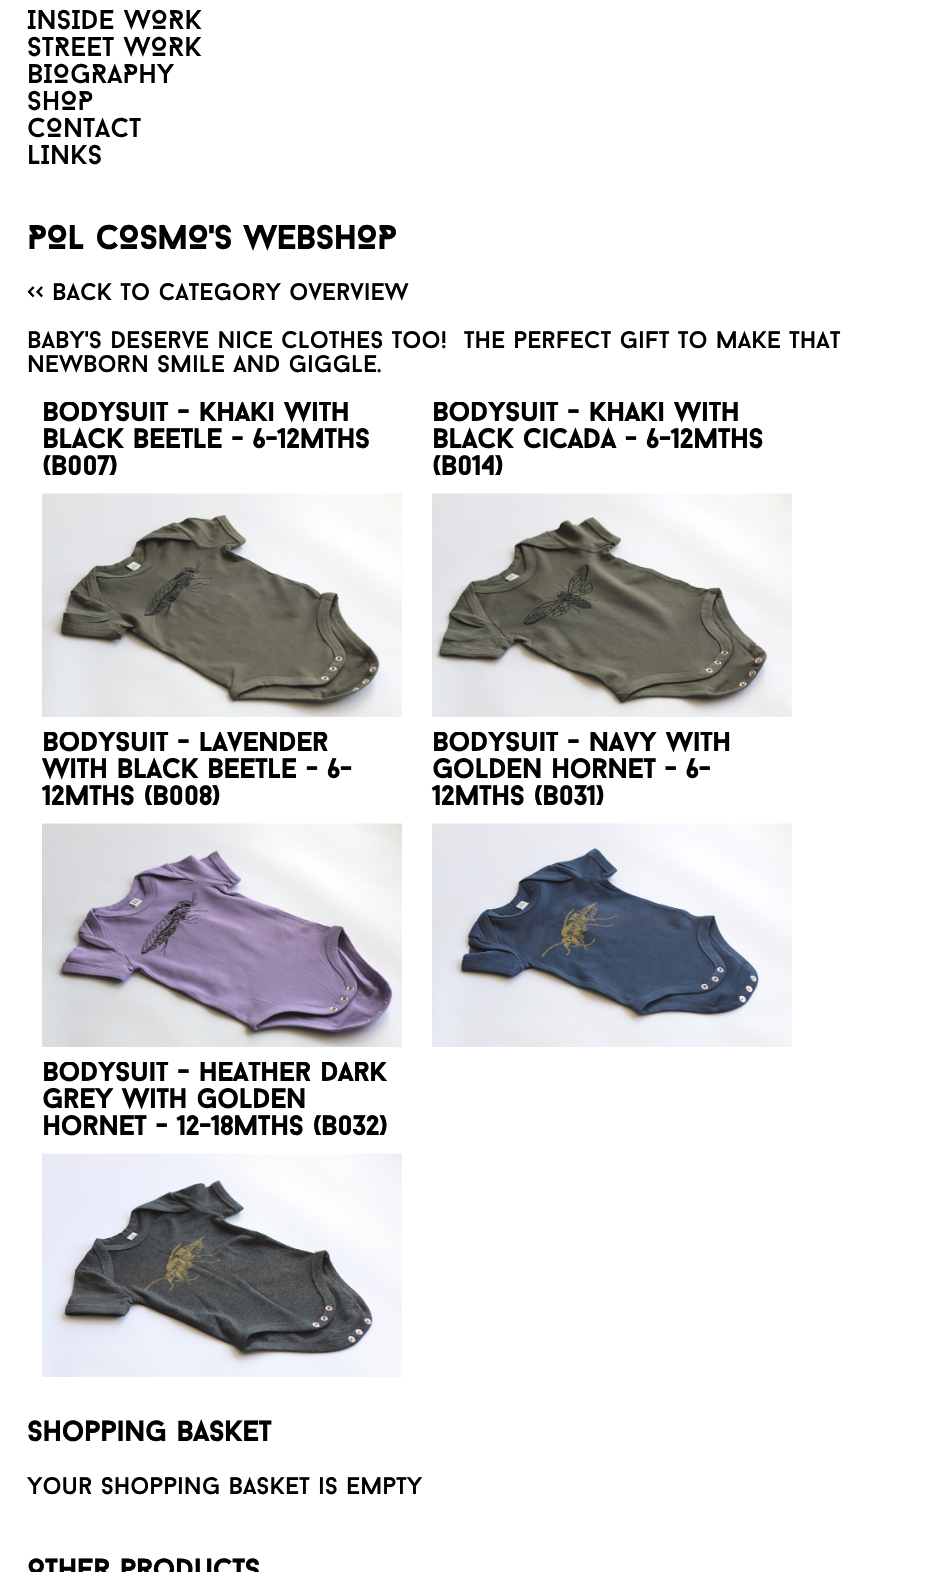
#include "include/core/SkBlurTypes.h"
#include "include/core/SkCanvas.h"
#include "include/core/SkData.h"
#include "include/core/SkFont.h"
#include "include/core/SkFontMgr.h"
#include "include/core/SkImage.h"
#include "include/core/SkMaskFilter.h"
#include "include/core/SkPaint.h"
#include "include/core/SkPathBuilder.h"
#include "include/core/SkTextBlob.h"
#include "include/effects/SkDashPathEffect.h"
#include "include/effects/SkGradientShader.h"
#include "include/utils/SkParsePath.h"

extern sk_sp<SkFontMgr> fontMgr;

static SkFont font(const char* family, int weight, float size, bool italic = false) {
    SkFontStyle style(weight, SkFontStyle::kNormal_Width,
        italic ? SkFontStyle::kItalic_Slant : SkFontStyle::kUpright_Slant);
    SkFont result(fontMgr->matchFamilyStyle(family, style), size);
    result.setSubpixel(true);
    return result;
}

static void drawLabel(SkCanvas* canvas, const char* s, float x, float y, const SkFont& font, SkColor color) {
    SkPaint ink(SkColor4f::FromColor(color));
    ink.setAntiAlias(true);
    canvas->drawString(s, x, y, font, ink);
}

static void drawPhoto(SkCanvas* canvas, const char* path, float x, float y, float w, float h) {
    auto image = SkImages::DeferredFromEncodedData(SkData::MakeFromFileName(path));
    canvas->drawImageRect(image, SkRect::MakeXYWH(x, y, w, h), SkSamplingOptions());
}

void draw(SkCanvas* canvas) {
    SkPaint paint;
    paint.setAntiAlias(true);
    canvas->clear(0xFFFFFFFF);
    SkFont font1 = font("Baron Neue", 400, 27);
    drawLabel(canvas, "INSIDE WORK", 27, 29, font1, 0xFF000000);
    drawLabel(canvas, "STREET WORK", 27, 56, font1, 0xFF000000);
    drawLabel(canvas, "BIOGRAPHY", 27, 83, font1, 0xFF000000);
    drawLabel(canvas, "SHOP", 27, 110, font1, 0xFF000000);
    drawLabel(canvas, "CONTACT", 27, 137, font1, 0xFF000000);
    drawLabel(canvas, "LINKS", 27, 164, font1, 0xFF000000);
    SkFont font2 = font("Baron Neue", 700, 33);
    drawLabel(canvas, "POL COSMO'S WEBSHOP", 27, 249, font2, 0xFF000000);
    SkFont font3 = font("Baron Neue", 400, 24);
    drawLabel(canvas, "<< Back to category overview", 27, 300, font3, 0xFF000000);
    drawLabel(canvas, "Baby's deserve nice clothes too!  The perfect gift to make that", 27, 348, font3, 0xFF000000);
    drawLabel(canvas, "newborn smile and giggle.", 27, 372, font3, 0xFF000000);
    canvas->save();
    canvas->clipRect(SkRect::MakeXYWH(42, 402, 360, 315));
    SkFont font4 = font("Baron Neue", 700, 27);
    drawLabel(canvas, "Bodysuit - Khaki with", 42, 421, font4, 0xFF000000);
    canvas->restore();
    drawLabel(canvas, "black beetle - 6-12mths", 42, 448, font4, 0xFF000000);
    drawLabel(canvas, "(B007)", 42, 475, font4, 0xFF000000);
    drawPhoto(canvas, "assets/img1.png", 42, 493, 360, 224);
    canvas->save();
    canvas->clipRect(SkRect::MakeXYWH(432, 402, 360, 315));
    drawLabel(canvas, "Bodysuit - Khaki with", 432, 421, font4, 0xFF000000);
    canvas->restore();
    drawLabel(canvas, "black cicada - 6-12mths", 432, 448, font4, 0xFF000000);
    drawLabel(canvas, "(B014)", 432, 475, font4, 0xFF000000);
    drawPhoto(canvas, "assets/img2.png", 432, 493, 360, 224);
    canvas->save();
    canvas->clipRect(SkRect::MakeXYWH(42, 732, 360, 315));
    drawLabel(canvas, "Bodysuit - Lavender", 42, 751, font4, 0xFF000000);
    canvas->restore();
    drawLabel(canvas, "with black beetle - 6-", 42, 778, font4, 0xFF000000);
    drawLabel(canvas, "12mths (B008)", 42, 805, font4, 0xFF000000);
    drawPhoto(canvas, "assets/img3.png", 42, 823, 360, 224);
    canvas->save();
    canvas->clipRect(SkRect::MakeXYWH(432, 732, 360, 315));
    drawLabel(canvas, "Bodysuit - Navy with", 432, 751, font4, 0xFF000000);
    canvas->restore();
    drawLabel(canvas, "golden hornet - 6-", 432, 778, font4, 0xFF000000);
    drawLabel(canvas, "12mths (B031)", 432, 805, font4, 0xFF000000);
    drawPhoto(canvas, "assets/img4.png", 432, 823, 360, 224);
    canvas->save();
    canvas->clipRect(SkRect::MakeXYWH(42, 1062, 360, 315));
    drawLabel(canvas, "Bodysuit - Heather dark", 42, 1081, font4, 0xFF000000);
    canvas->restore();
    drawLabel(canvas, "grey with golden", 42, 1108, font4, 0xFF000000);
    drawLabel(canvas, "hornet - 12-18mths (B032)", 42, 1135, font4, 0xFF000000);
    drawPhoto(canvas, "assets/img5.png", 42, 1153, 360, 224);
    SkFont font5 = font("Baron Neue", 700, 28);
    drawLabel(canvas, "Shopping basket", 27, 1441, font5, 0xFF000000);
    drawLabel(canvas, "Your shopping basket is empty", 27, 1494, font3, 0xFF000000);
    drawLabel(canvas, "Other products", 27, 1579, font5, 0xFF000000);
}
